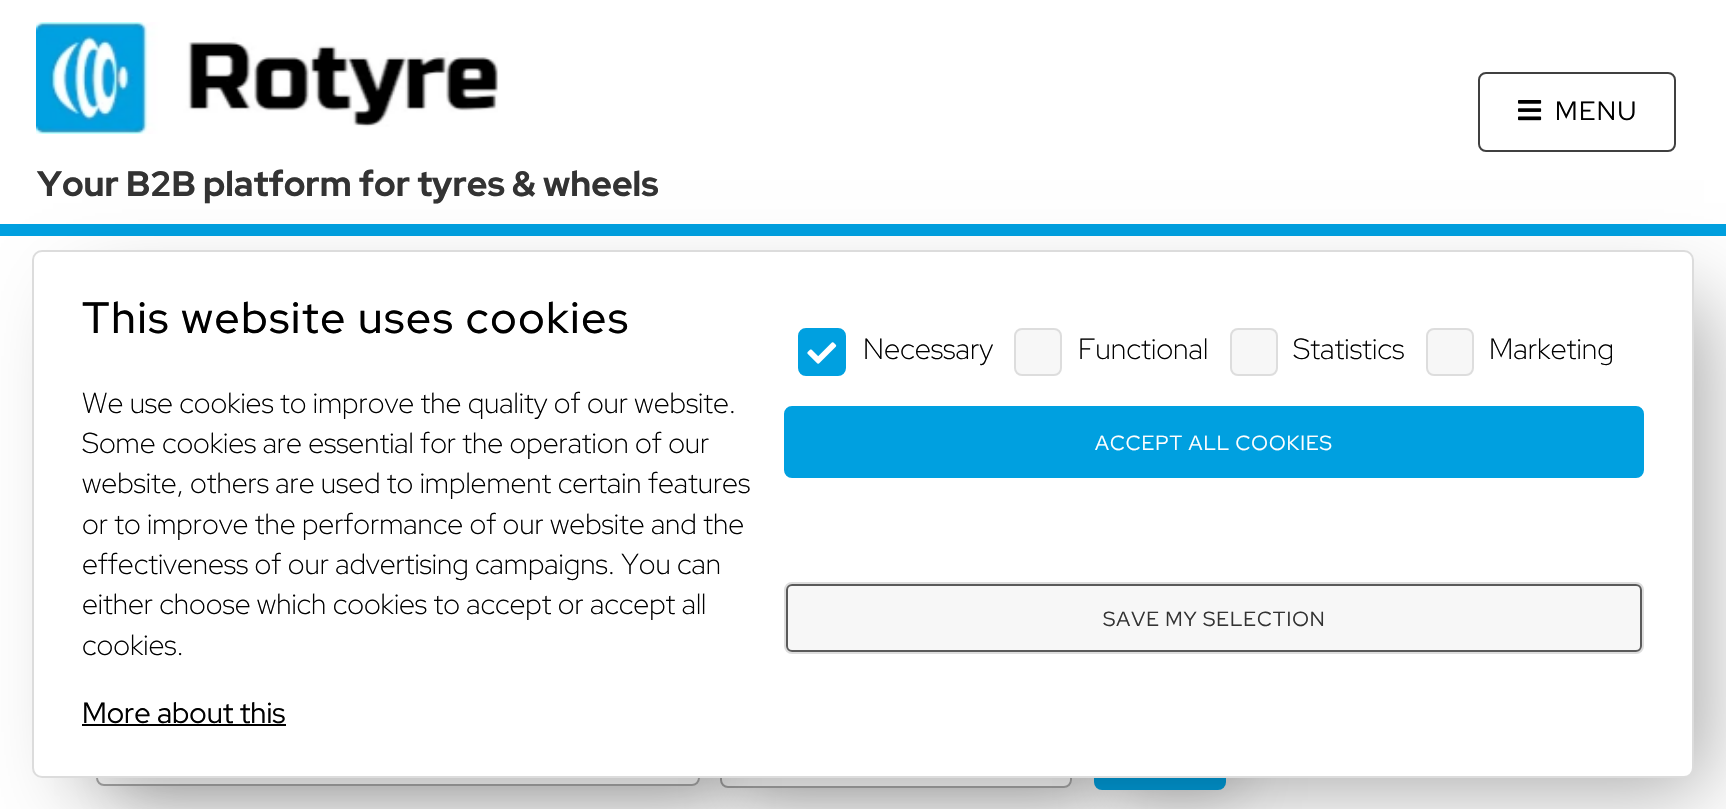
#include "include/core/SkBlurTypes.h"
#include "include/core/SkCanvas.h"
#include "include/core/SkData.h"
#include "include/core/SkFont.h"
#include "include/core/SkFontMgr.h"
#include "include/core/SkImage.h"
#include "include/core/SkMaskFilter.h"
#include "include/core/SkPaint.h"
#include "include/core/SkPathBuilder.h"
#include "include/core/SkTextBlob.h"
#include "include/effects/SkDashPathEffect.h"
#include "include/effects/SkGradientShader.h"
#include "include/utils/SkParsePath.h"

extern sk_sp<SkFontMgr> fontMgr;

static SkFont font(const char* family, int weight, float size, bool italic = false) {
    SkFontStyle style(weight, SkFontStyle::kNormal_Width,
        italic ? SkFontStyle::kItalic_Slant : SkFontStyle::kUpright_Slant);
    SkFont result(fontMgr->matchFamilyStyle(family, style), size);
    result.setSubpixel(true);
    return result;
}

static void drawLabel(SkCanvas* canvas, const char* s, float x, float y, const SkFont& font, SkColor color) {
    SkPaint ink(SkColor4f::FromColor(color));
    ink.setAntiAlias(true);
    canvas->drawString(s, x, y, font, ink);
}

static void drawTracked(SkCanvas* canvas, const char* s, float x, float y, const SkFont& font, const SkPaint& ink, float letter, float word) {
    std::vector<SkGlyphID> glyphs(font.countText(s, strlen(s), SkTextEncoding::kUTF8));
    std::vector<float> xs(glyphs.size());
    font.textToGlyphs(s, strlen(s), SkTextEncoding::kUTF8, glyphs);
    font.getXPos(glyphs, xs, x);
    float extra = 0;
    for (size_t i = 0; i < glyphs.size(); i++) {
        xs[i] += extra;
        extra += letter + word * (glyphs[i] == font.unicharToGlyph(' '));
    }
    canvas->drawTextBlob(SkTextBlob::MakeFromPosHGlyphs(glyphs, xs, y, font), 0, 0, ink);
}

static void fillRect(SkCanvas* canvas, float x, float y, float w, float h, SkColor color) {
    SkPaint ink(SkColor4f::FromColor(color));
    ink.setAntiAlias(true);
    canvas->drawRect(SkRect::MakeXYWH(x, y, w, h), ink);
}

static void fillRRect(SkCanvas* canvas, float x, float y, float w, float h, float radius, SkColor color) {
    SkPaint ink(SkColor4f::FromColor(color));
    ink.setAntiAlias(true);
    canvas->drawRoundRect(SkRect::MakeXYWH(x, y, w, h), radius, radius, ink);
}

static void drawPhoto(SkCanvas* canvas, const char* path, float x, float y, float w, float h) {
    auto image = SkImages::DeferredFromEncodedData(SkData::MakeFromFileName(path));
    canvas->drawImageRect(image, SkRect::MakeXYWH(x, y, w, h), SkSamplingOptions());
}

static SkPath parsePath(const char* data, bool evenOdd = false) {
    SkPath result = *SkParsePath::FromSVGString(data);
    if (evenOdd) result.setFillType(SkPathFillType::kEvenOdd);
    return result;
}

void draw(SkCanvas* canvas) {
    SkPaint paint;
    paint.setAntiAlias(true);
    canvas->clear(0xFFFFFFFF);
    fillRect(canvas, 0, 224, 1726, 12, 0xFF00A0E0);
    paint.setStroke(true);
    paint.setStrokeWidth(2);
    paint.setColor(0xFF404040);
    canvas->drawRoundRect(SkRect::MakeXYWH(1479, 73, 196, 78), 7, 7, paint);
    drawPhoto(canvas, "assets/img1.png", 1518, 100, 24, 21);
    SkFont font1 = font("Red Hat Display", 400, 26.5f);
    paint.setStroke(false);
    paint.setColor(0xFF000000);
    drawTracked(canvas, "MENU", 1555, 120, font1, paint, 1.5f, 0);
    drawPhoto(canvas, "assets/img2.png", 36, 22, 462, 112);
    SkFont font2 = font("Red Hat Display", 800, 35.25f);
    drawLabel(canvas, "Your B2B platform for tyres & wheels", 37, 196, font2, 0xFF333333);
    canvas->save();
    canvas->clipPath(parsePath("M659 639H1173V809H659ZM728 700H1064C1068.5 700 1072 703.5 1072 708V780C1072 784.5 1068.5 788 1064 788H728C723.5 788 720 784.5 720 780V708C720 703.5 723.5 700 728 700Z", true), true);
    paint.setColor(0x33000000);
    paint.setMaskFilter(SkMaskFilter::MakeBlur(kNormal_SkBlurStyle, 30));
    canvas->drawRect(SkRect::MakeXYWH(750, 730, 332, 68), paint);
    paint.setMaskFilter(nullptr);
    canvas->restore();
    paint.setStroke(true);
    paint.setColor(0xFFAAAAAA);
    canvas->drawRoundRect(SkRect::MakeXYWH(721, 701, 350, 86), 7, 7, paint);
    canvas->save();
    canvas->clipPath(parsePath("M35 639H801V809H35ZM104 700H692C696.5 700 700 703.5 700 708V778C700 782.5 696.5 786 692 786H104C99.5 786 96 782.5 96 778V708C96 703.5 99.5 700 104 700Z", true), true);
    paint.setStroke(false);
    paint.setColor(0x33000000);
    paint.setMaskFilter(SkMaskFilter::MakeBlur(kNormal_SkBlurStyle, 30));
    canvas->drawRect(SkRect::MakeXYWH(126, 730, 584, 66), paint);
    paint.setMaskFilter(nullptr);
    canvas->restore();
    paint.setStroke(true);
    paint.setColor(0xFFAAAAAA);
    canvas->drawRoundRect(SkRect::MakeXYWH(97, 701, 602, 84), 7, 7, paint);
    paint.setStroke(false);
    paint.setColor(0x33000000);
    paint.setMaskFilter(SkMaskFilter::MakeBlur(kNormal_SkBlurStyle, 30));
    canvas->drawRect(SkRect::MakeXYWH(1124, 728, 112, 72), paint);
    paint.setMaskFilter(nullptr);
    fillRRect(canvas, 1094, 698, 132, 92, 8, 0xFF00A0E0);
    paint.setColor(0x59000000);
    paint.setMaskFilter(SkMaskFilter::MakeBlur(kNormal_SkBlurStyle, 40));
    canvas->drawRect(SkRect::MakeXYWH(82, 300, 1622, 488), paint);
    paint.setMaskFilter(nullptr);
    paint.setColor(0xFFFFFFFF);
    canvas->drawRoundRect(SkRect::MakeXYWH(33, 251, 1660, 526), 9, 9, paint);
    paint.setStroke(true);
    paint.setColor(0xFFDCDCDC);
    canvas->drawRoundRect(SkRect::MakeXYWH(33, 251, 1660, 526), 9, 9, paint);
    SkFont font3 = font("Red Hat Display", 500, 44);
    paint.setStroke(false);
    paint.setColor(0xFF000000);
    drawTracked(canvas, "This website uses cookies", 82, 333, font3, paint, 1.75f, 0);
    SkFont font4 = font("Red Hat Display", 300, 28.8f);
    drawLabel(canvas, "We use cookies to improve the quality of our website.", 82, 413, font4, 0xFF000000);
    drawLabel(canvas, "Some cookies are essential for the operation of our", 82, 453, font4, 0xFF000000);
    drawLabel(canvas, "website, others are used to implement certain features", 82, 493, font4, 0xFF000000);
    drawLabel(canvas, "or to improve the performance of our website and the", 82, 534, font4, 0xFF000000);
    drawLabel(canvas, "effectiveness of our advertising campaigns. You can", 82, 574, font4, 0xFF000000);
    drawLabel(canvas, "either choose which cookies to accept or accept all", 82, 614, font4, 0xFF000000);
    drawLabel(canvas, "cookies.", 82, 655, font4, 0xFF000000);
    SkFont font5 = font("Red Hat Display", 400, 29.25f);
    drawLabel(canvas, "More about this", 82, 723, font5, 0xFF000000);
    fillRect(canvas, 82, 724, 204, 2, 0xFF000000);
    paint.setColor(0xFF00A0E0);
    canvas->drawRoundRect(SkRect::MakeXYWH(799, 329, 46, 46), 7, 7, paint);
    paint.setStroke(true);
    canvas->drawRoundRect(SkRect::MakeXYWH(799, 329, 46, 46), 7, 7, paint);
    drawPhoto(canvas, "assets/img3.png", 807, 342, 30, 22);
    SkFont font6 = font("Red Hat Display", 300, 29.25f);
    drawLabel(canvas, "Necessary", 863, 359, font6, 0xFF000000);
    fillRRect(canvas, 1014, 328, 48, 48, 8, 0xFFF7F7F7);
    paint.setColor(0x40909090);
    canvas->drawRoundRect(SkRect::MakeXYWH(1015, 329, 46, 46), 7, 7, paint);
    drawLabel(canvas, "Functional", 1078, 359, font6, 0xFF000000);
    fillRRect(canvas, 1230, 328, 48, 48, 8, 0xFFF7F7F7);
    canvas->drawRoundRect(SkRect::MakeXYWH(1231, 329, 46, 46), 7, 7, paint);
    drawLabel(canvas, "Statistics", 1293, 359, font6, 0xFF000000);
    fillRRect(canvas, 1426, 328, 48, 48, 8, 0xFFF7F7F7);
    canvas->drawRoundRect(SkRect::MakeXYWH(1427, 329, 46, 46), 7, 7, paint);
    drawLabel(canvas, "Marketing", 1489, 359, font6, 0xFF000000);
    paint.setStroke(false);
    paint.setColor(0xFF00A0E0);
    canvas->drawRoundRect(SkRect::MakeXYWH(785, 407, 858, 70), 7, 7, paint);
    paint.setStroke(true);
    canvas->drawRoundRect(SkRect::MakeXYWH(785, 407, 858, 70), 7, 7, paint);
    SkFont font7 = font("Red Hat Display", 400, 20.5f);
    paint.setStroke(false);
    paint.setColor(0xFFFFFFFF);
    drawTracked(canvas, "ACCEPT ALL COOKIES", 1095, 450, font7, paint, 1, 0);
    fillRRect(canvas, 784, 582, 860, 72, 8, 0xFFF7F7F7);
    paint.setStroke(true);
    paint.setColor(0xFF5A5A5A);
    canvas->drawRoundRect(SkRect::MakeXYWH(787, 585, 854, 66), 5, 5, paint);
    paint.setColor(0x40909090);
    canvas->drawRoundRect(SkRect::MakeXYWH(785, 583, 858, 70), 7, 7, paint);
    paint.setStroke(false);
    paint.setColor(0xFF333333);
    drawTracked(canvas, "SAVE MY SELECTION", 1103, 626, font7, paint, 1, 0);
}
